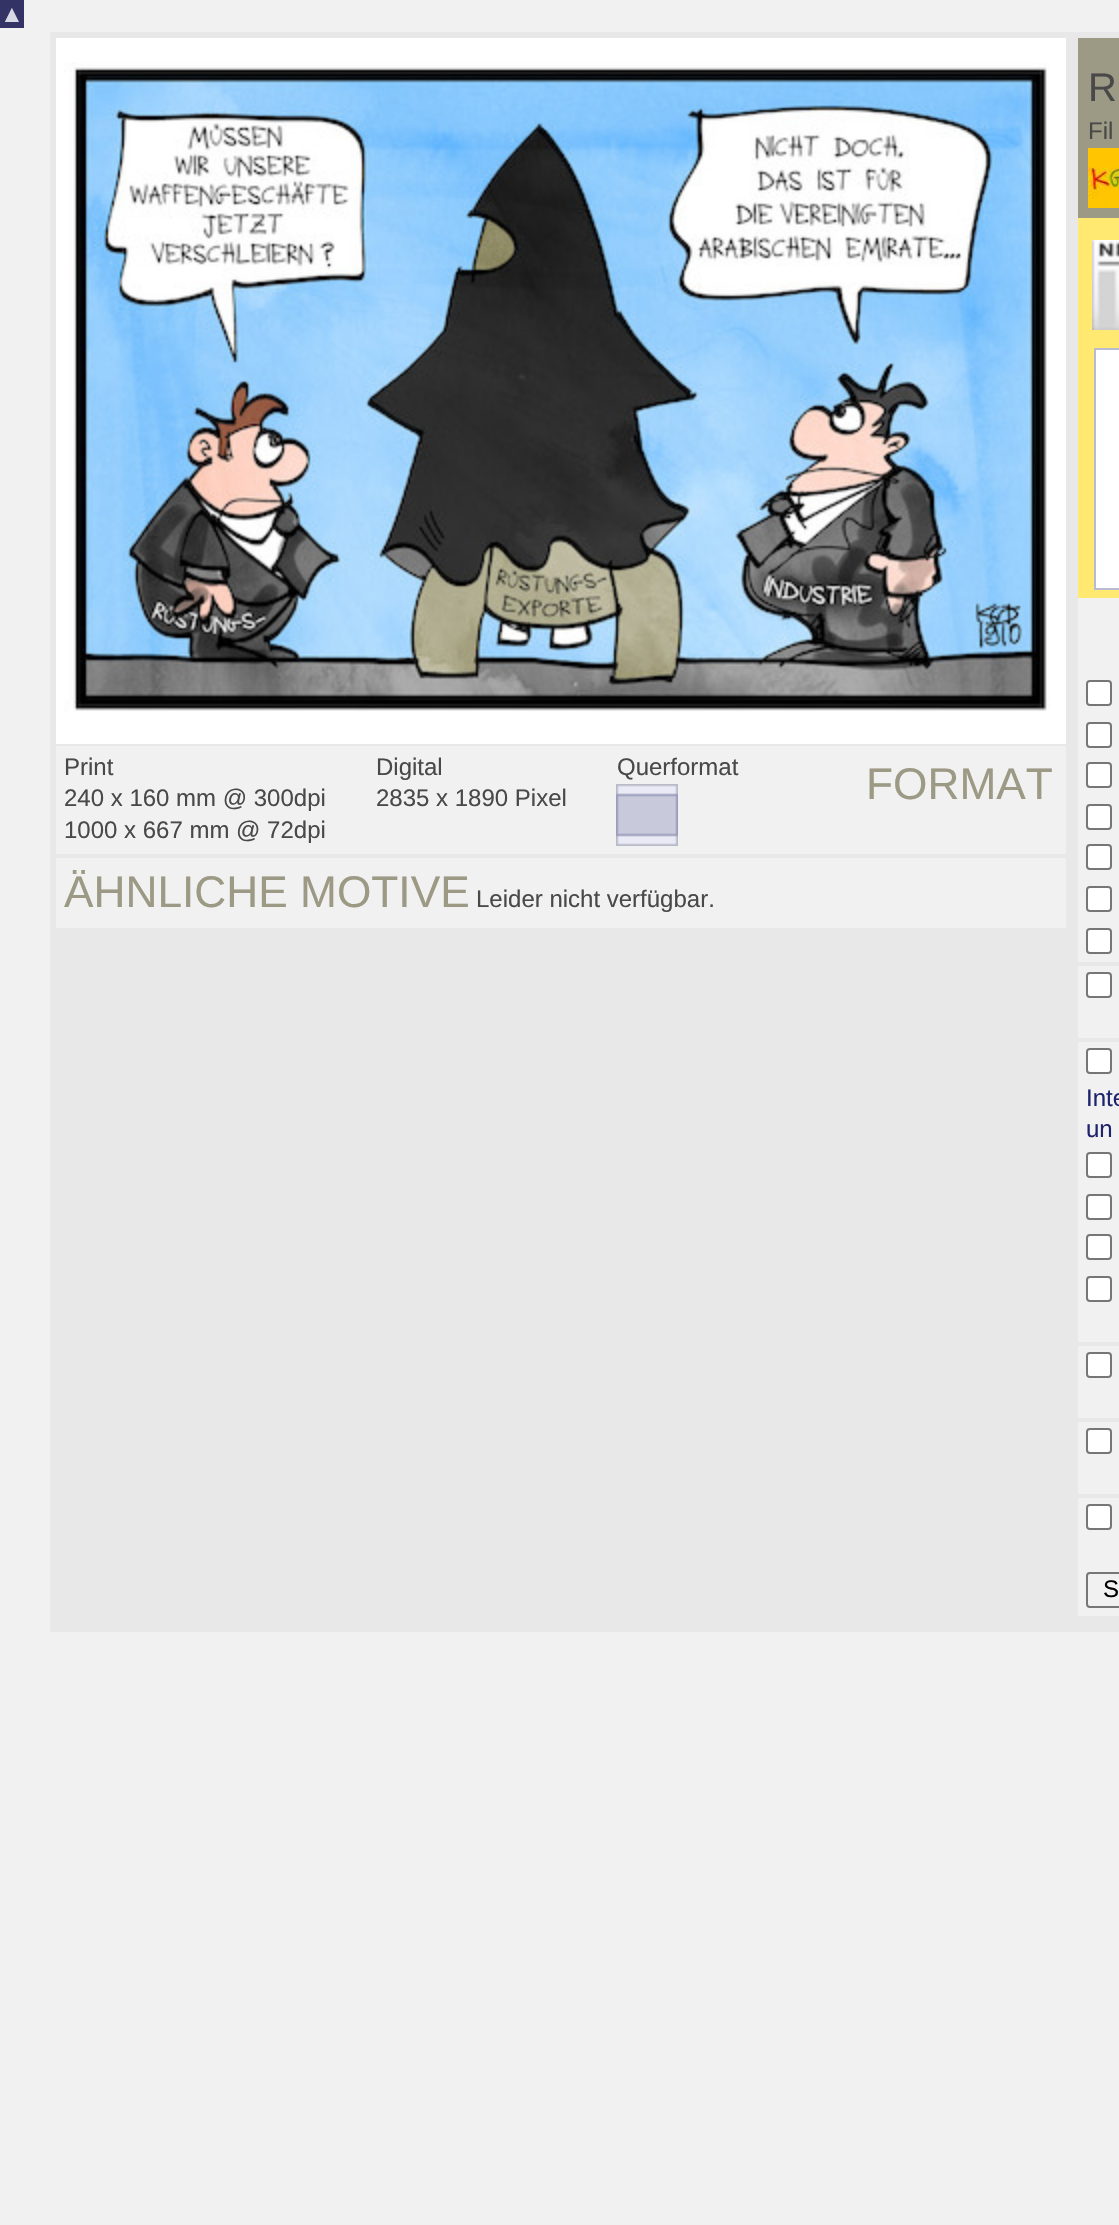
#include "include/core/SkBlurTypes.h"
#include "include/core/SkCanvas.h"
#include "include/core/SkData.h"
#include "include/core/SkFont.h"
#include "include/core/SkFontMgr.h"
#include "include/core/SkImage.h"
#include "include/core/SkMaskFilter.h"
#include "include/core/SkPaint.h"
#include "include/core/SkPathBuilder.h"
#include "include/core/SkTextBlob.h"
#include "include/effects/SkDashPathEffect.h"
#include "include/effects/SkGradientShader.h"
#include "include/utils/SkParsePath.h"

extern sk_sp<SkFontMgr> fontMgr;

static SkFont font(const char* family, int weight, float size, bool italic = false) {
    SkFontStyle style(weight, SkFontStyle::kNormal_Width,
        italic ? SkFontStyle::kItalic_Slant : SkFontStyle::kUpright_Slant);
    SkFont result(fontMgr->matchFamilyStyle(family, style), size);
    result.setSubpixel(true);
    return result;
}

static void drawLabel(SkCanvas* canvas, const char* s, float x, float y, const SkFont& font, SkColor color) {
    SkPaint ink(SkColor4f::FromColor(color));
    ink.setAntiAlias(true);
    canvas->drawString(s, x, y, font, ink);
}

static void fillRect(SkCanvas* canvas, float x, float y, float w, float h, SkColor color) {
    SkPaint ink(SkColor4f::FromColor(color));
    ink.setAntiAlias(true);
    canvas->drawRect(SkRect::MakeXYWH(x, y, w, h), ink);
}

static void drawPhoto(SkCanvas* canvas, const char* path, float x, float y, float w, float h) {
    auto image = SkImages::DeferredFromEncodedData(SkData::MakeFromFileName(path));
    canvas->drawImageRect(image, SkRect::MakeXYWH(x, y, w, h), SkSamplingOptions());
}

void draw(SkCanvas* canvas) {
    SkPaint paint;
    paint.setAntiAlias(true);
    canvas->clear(0xFFF1F1F1);
    fillRect(canvas, 0, 0, 24, 28, 0xFF333366);
    SkFont font1 = font("Liberation Sans", 400, 24);
    drawLabel(canvas, "▲", 0, 22, font1, 0xFFD8D9E5);
    fillRect(canvas, 50, 32, 1069, 1600, 0xFFE8E8E8);
    fillRect(canvas, 56, 38, 1010, 706, 0xFFFFFFFF);
    drawPhoto(canvas, "assets/img1.png", 64, 62, 986, 650);
    fillRect(canvas, 56, 746, 1010, 108, 0xFFF1F1F1);
    drawLabel(canvas, "Print", 64, 775, font1, 0xFF494949);
    drawLabel(canvas, "240 x 160 mm @ 300dpi", 64, 806, font1, 0xFF494949);
    drawLabel(canvas, "1000 x 667 mm @ 72dpi", 64, 838, font1, 0xFF494949);
    drawLabel(canvas, "Digital", 376, 775, font1, 0xFF494949);
    drawLabel(canvas, "2835 x 1890 Pixel", 376, 806, font1, 0xFF494949);
    drawLabel(canvas, "Querformat", 617, 775, font1, 0xFF494949);
    drawPhoto(canvas, "assets/img2.png", 616, 784, 62, 62);
    SkFont font2 = font("Liberation Sans", 400, 44.25f);
    drawLabel(canvas, "FORMAT", 866, 799, font2, 0xFF9C9984);
    fillRect(canvas, 56, 858, 1010, 70, 0xFFF1F1F1);
    drawLabel(canvas, "ÄHNLICHE MOTIVE", 64, 907, font2, 0xFF9C9984);
    drawLabel(canvas, "Leider nicht verfügbar.", 476, 907, font1, 0xFF494949);
    fillRect(canvas, 1078, 38, 41, 180, 0xFF9C9984);
    SkFont font3 = font("Liberation Sans", 400, 40);
    drawLabel(canvas, "R", 1088, 101, font3, 0xFF494949);
    drawLabel(canvas, "Fil", 1088, 139, font1, 0xFF494949);
    drawPhoto(canvas, "assets/img3.png", 1088, 148, 31, 60);
    fillRect(canvas, 1078, 218, 41, 380, 0xFFFFE970);
    drawPhoto(canvas, "assets/img4.png", 1092, 240, 27, 90);
    paint.setColor(0xFFFFFFFF);
    canvas->drawRect(SkRect::MakeXYWH(1095, 349, 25, 240), paint);
    paint.setStroke(true);
    paint.setStrokeWidth(2);
    paint.setColor(0xFFB9BBD0);
    canvas->drawRect(SkRect::MakeXYWH(1095, 349, 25, 240), paint);
    fillRect(canvas, 1078, 598, 41, 1018, 0xFFF1F1F1);
    paint.setStroke(false);
    paint.setColor(0xFFFFFFFF);
    canvas->drawRoundRect(SkRect::MakeXYWH(1087, 681, 24, 24), 3, 3, paint);
    paint.setStroke(true);
    paint.setColor(0xFF767676);
    canvas->drawRoundRect(SkRect::MakeXYWH(1087, 681, 24, 24), 3, 3, paint);
    paint.setStroke(false);
    paint.setColor(0xFFFFFFFF);
    canvas->drawRoundRect(SkRect::MakeXYWH(1087, 723, 24, 24), 3, 3, paint);
    paint.setStroke(true);
    paint.setColor(0xFF767676);
    canvas->drawRoundRect(SkRect::MakeXYWH(1087, 723, 24, 24), 3, 3, paint);
    paint.setStroke(false);
    paint.setColor(0xFFFFFFFF);
    canvas->drawRoundRect(SkRect::MakeXYWH(1087, 763, 24, 24), 3, 3, paint);
    paint.setStroke(true);
    paint.setColor(0xFF767676);
    canvas->drawRoundRect(SkRect::MakeXYWH(1087, 763, 24, 24), 3, 3, paint);
    paint.setStroke(false);
    paint.setColor(0xFFFFFFFF);
    canvas->drawRoundRect(SkRect::MakeXYWH(1087, 805, 24, 24), 3, 3, paint);
    paint.setStroke(true);
    paint.setColor(0xFF767676);
    canvas->drawRoundRect(SkRect::MakeXYWH(1087, 805, 24, 24), 3, 3, paint);
    paint.setStroke(false);
    paint.setColor(0xFFFFFFFF);
    canvas->drawRoundRect(SkRect::MakeXYWH(1087, 845, 24, 24), 3, 3, paint);
    paint.setStroke(true);
    paint.setColor(0xFF767676);
    canvas->drawRoundRect(SkRect::MakeXYWH(1087, 845, 24, 24), 3, 3, paint);
    paint.setStroke(false);
    paint.setColor(0xFFFFFFFF);
    canvas->drawRoundRect(SkRect::MakeXYWH(1087, 887, 24, 24), 3, 3, paint);
    paint.setStroke(true);
    paint.setColor(0xFF767676);
    canvas->drawRoundRect(SkRect::MakeXYWH(1087, 887, 24, 24), 3, 3, paint);
    paint.setStroke(false);
    paint.setColor(0xFFFFFFFF);
    canvas->drawRoundRect(SkRect::MakeXYWH(1087, 929, 24, 24), 3, 3, paint);
    paint.setStroke(true);
    paint.setColor(0xFF767676);
    canvas->drawRoundRect(SkRect::MakeXYWH(1087, 929, 24, 24), 3, 3, paint);
    fillRect(canvas, 1078, 962, 41, 4, 0xFFE8E8E8);
    paint.setStroke(false);
    paint.setColor(0xFFFFFFFF);
    canvas->drawRoundRect(SkRect::MakeXYWH(1087, 973, 24, 24), 3, 3, paint);
    paint.setStroke(true);
    paint.setColor(0xFF767676);
    canvas->drawRoundRect(SkRect::MakeXYWH(1087, 973, 24, 24), 3, 3, paint);
    fillRect(canvas, 1078, 1038, 41, 4, 0xFFE8E8E8);
    paint.setStroke(false);
    paint.setColor(0xFFFFFFFF);
    canvas->drawRoundRect(SkRect::MakeXYWH(1087, 1049, 24, 24), 3, 3, paint);
    paint.setStroke(true);
    paint.setColor(0xFF767676);
    canvas->drawRoundRect(SkRect::MakeXYWH(1087, 1049, 24, 24), 3, 3, paint);
    drawLabel(canvas, "Inte", 1086, 1106, font1, 0xFF1D246C);
    drawLabel(canvas, "un", 1086, 1137, font1, 0xFF1D246C);
    paint.setStroke(false);
    paint.setColor(0xFFFFFFFF);
    canvas->drawRoundRect(SkRect::MakeXYWH(1087, 1153, 24, 24), 3, 3, paint);
    paint.setStroke(true);
    paint.setColor(0xFF767676);
    canvas->drawRoundRect(SkRect::MakeXYWH(1087, 1153, 24, 24), 3, 3, paint);
    paint.setStroke(false);
    paint.setColor(0xFFFFFFFF);
    canvas->drawRoundRect(SkRect::MakeXYWH(1087, 1195, 24, 24), 3, 3, paint);
    paint.setStroke(true);
    paint.setColor(0xFF767676);
    canvas->drawRoundRect(SkRect::MakeXYWH(1087, 1195, 24, 24), 3, 3, paint);
    paint.setStroke(false);
    paint.setColor(0xFFFFFFFF);
    canvas->drawRoundRect(SkRect::MakeXYWH(1087, 1235, 24, 24), 3, 3, paint);
    paint.setStroke(true);
    paint.setColor(0xFF767676);
    canvas->drawRoundRect(SkRect::MakeXYWH(1087, 1235, 24, 24), 3, 3, paint);
    paint.setStroke(false);
    paint.setColor(0xFFFFFFFF);
    canvas->drawRoundRect(SkRect::MakeXYWH(1087, 1277, 24, 24), 3, 3, paint);
    paint.setStroke(true);
    paint.setColor(0xFF767676);
    canvas->drawRoundRect(SkRect::MakeXYWH(1087, 1277, 24, 24), 3, 3, paint);
    fillRect(canvas, 1078, 1342, 41, 4, 0xFFE8E8E8);
    paint.setStroke(false);
    paint.setColor(0xFFFFFFFF);
    canvas->drawRoundRect(SkRect::MakeXYWH(1087, 1353, 24, 24), 3, 3, paint);
    paint.setStroke(true);
    paint.setColor(0xFF767676);
    canvas->drawRoundRect(SkRect::MakeXYWH(1087, 1353, 24, 24), 3, 3, paint);
    fillRect(canvas, 1078, 1418, 41, 4, 0xFFE8E8E8);
    paint.setStroke(false);
    paint.setColor(0xFFFFFFFF);
    canvas->drawRoundRect(SkRect::MakeXYWH(1087, 1429, 24, 24), 3, 3, paint);
    paint.setStroke(true);
    paint.setColor(0xFF767676);
    canvas->drawRoundRect(SkRect::MakeXYWH(1087, 1429, 24, 24), 3, 3, paint);
    fillRect(canvas, 1078, 1494, 41, 4, 0xFFE8E8E8);
    paint.setStroke(false);
    paint.setColor(0xFFFFFFFF);
    canvas->drawRoundRect(SkRect::MakeXYWH(1087, 1505, 24, 24), 3, 3, paint);
    paint.setStroke(true);
    paint.setColor(0xFF767676);
    canvas->drawRoundRect(SkRect::MakeXYWH(1087, 1505, 24, 24), 3, 3, paint);
    canvas->drawRoundRect(SkRect::MakeXYWH(1087, 1573, 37, 34), 3, 3, paint);
    drawLabel(canvas, "S", 1103, 1597, font1, 0xFF000000);
}
